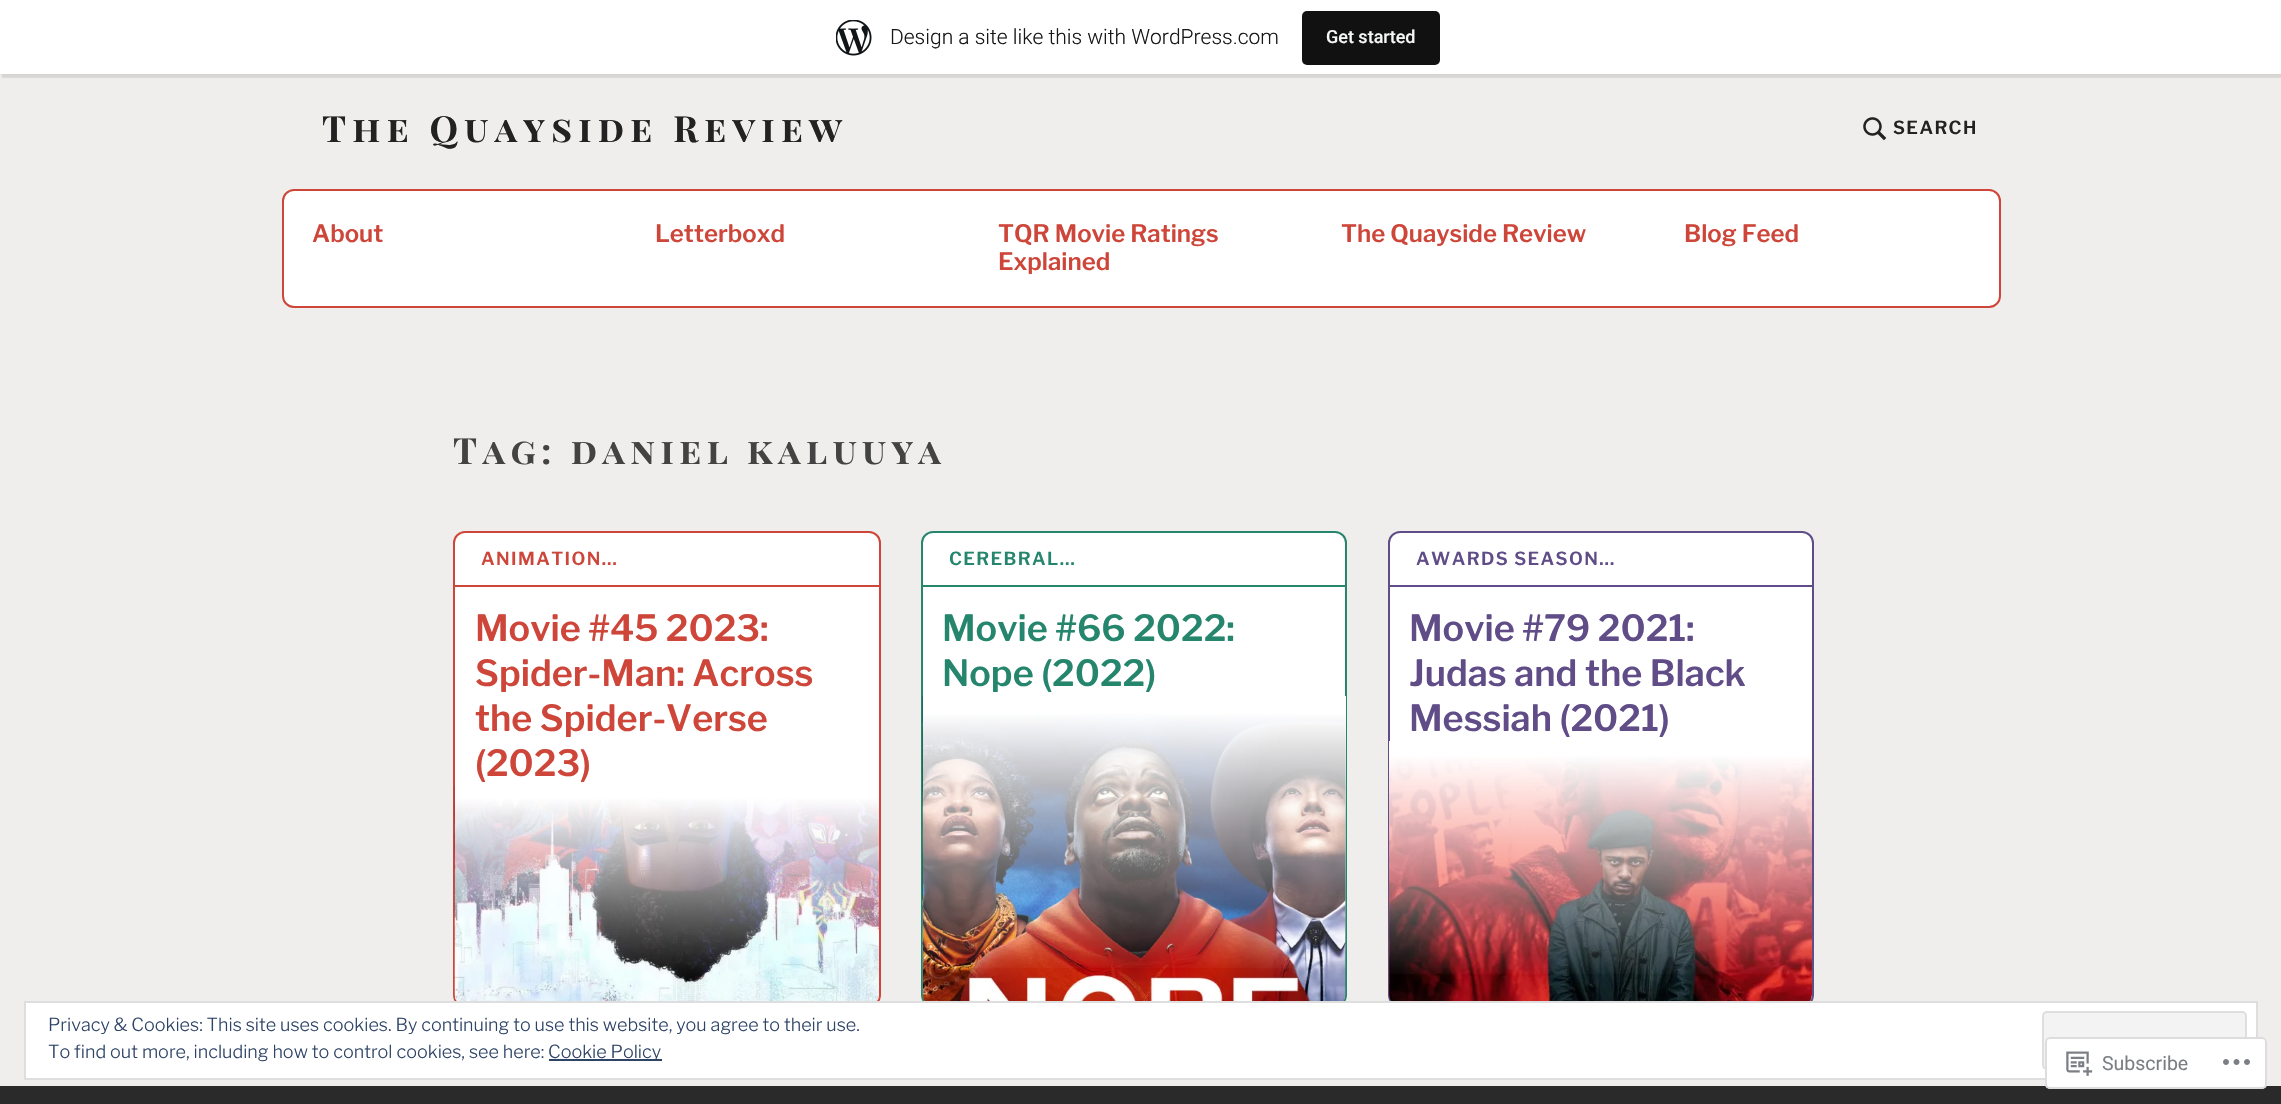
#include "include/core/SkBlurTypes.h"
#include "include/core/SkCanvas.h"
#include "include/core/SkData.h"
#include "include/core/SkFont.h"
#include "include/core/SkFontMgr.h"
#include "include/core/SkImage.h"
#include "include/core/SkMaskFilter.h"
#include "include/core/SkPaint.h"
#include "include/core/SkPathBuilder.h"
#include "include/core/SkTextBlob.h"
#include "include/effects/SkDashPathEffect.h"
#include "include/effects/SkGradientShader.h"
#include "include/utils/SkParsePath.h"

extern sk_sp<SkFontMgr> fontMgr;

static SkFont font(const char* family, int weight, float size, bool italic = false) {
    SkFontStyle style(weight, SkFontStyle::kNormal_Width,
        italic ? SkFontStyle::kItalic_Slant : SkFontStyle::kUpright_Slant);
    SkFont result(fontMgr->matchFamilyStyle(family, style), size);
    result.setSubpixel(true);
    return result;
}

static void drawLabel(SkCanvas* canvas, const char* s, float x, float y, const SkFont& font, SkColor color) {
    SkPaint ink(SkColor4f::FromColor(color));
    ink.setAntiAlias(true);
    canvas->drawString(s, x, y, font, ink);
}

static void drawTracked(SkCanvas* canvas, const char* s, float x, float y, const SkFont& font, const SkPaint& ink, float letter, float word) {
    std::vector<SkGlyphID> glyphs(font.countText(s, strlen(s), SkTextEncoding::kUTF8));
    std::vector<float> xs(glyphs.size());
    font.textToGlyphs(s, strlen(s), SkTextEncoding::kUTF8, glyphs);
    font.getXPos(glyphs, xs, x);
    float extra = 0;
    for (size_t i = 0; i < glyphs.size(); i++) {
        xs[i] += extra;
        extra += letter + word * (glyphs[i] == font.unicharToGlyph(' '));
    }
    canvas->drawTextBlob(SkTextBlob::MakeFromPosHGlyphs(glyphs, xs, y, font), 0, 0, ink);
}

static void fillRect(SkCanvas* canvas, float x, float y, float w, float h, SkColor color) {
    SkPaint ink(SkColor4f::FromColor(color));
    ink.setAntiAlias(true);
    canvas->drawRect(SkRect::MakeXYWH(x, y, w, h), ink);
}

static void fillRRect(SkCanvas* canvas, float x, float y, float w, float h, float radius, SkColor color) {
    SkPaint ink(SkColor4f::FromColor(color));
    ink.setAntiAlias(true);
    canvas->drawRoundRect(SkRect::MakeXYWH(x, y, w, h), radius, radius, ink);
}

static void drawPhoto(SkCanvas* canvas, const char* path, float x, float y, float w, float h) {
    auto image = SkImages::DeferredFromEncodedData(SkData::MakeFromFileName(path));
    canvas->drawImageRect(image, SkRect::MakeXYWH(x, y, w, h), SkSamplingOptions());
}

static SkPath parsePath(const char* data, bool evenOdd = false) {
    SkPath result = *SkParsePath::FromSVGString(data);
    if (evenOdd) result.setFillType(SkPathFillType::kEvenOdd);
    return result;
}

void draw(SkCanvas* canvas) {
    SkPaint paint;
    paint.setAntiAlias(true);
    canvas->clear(0xFFF0EEEC);
    paint.setColor(0x0D000000);
    paint.setMaskFilter(SkMaskFilter::MakeBlur(kNormal_SkBlurStyle, 1.5f));
    canvas->drawRect(SkRect::MakeXYWH(0, 2, 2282, 73), paint);
    paint.setMaskFilter(nullptr);
    paint.setColor(0x14000000);
    canvas->drawPath(parsePath("M2 74V78H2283V5H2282V74Z"), paint);
    fillRect(canvas, 0, 0, 2281, 74, 0xFFFFFFFF);
    drawPhoto(canvas, "assets/img1.png", 836, 20, 36, 36);
    SkFont font1 = font("Roboto", 300, 21);
    drawLabel(canvas, "Design a site like this with WordPress.com", 890, 44, font1, 0xFF171717);
    fillRRect(canvas, 1302, 11, 138, 54, 5, 0xFF111111);
    SkFont font2 = font("Roboto", 500, 18);
    drawLabel(canvas, "Get started", 1326, 43, font2, 0xFFF6F7F7);
    SkFont font3 = font("Playfair Display SC", 700, 36);
    paint.setColor(0xFF222222);
    drawTracked(canvas, "The Quayside Review", 322, 142, font3, paint, 6.25f, 0);
    drawPhoto(canvas, "assets/img2.png", 1863, 117, 24, 24);
    SkFont font4 = font("Libre Franklin", 600, 18);
    drawTracked(canvas, "SEARCH", 1893, 134, font4, paint, 1.4f, 0);
    paint.setColor(0xFFFFFFFF);
    canvas->drawRoundRect(SkRect::MakeXYWH(283, 190, 1717, 117), 11, 11, paint);
    paint.setStroke(true);
    paint.setStrokeWidth(2);
    paint.setColor(0xFFCE4639);
    canvas->drawRoundRect(SkRect::MakeXYWH(283, 190, 1717, 117), 11, 11, paint);
    SkFont font5 = font("Libre Franklin", 600, 24);
    drawLabel(canvas, "About", 312, 242, font5, 0xFFCE4639);
    drawLabel(canvas, "Letterboxd", 655, 242, font5, 0xFFCE4639);
    drawLabel(canvas, "TQR Movie Ratings", 998, 242, font5, 0xFFCE4639);
    drawLabel(canvas, "Explained", 998, 270, font5, 0xFFCE4639);
    drawLabel(canvas, "The Quayside Review", 1341, 242, font5, 0xFFCE4639);
    drawLabel(canvas, "Blog Feed", 1684, 242, font5, 0xFFCE4639);
    paint.setStroke(false);
    paint.setColor(0xFF434343);
    drawTracked(canvas, "Tag: daniel kaluuya", 453, 464, font3, paint, 5.4f, 0);
    paint.setColor(0xFFFFFFFF);
    canvas->drawRoundRect(SkRect::MakeXYWH(454, 532, 426, 474), 11, 11, paint);
    paint.setStroke(true);
    paint.setColor(0xFFCE4639);
    canvas->drawRoundRect(SkRect::MakeXYWH(454, 532, 426, 474), 11, 11, paint);
    paint.setStroke(false);
    drawTracked(canvas, "ANIMATION…", 481, 565, font4, paint, 1.4f, 0);
    fillRect(canvas, 455, 585, 424, 2, 0xFFCE4639);
    SkFont font6 = font("Libre Franklin", 600, 36);
    drawLabel(canvas, "Movie #45 2023:", 475, 641, font6, 0xFFCE4639);
    drawLabel(canvas, "Spider-Man: Across", 475, 686, font6, 0xFFCE4639);
    drawLabel(canvas, "the Spider-Verse", 475, 731, font6, 0xFFCE4639);
    drawLabel(canvas, "(2023)", 475, 776, font6, 0xFFCE4639);
    drawPhoto(canvas, "assets/img3.png", 454, 786, 425, 215);
    {
        const SkColor colors[] = {0xFFFFFFFF, 0x00FFFFFF};
        const float stops[] = {0.05f, 0.9f};
        const SkPoint ends[] = {{667, 786}, {667, 1005}};
        paint.setShader(SkGradientShader::MakeLinear(ends, colors, stops, 2, SkTileMode::kClamp));
        paint.setAlpha(255);
    }
    canvas->drawRect(SkRect::MakeXYWH(455, 786, 424, 193), paint);
    paint.setShader(nullptr);
    paint.setColor(0xFFFFFFFF);
    canvas->drawRoundRect(SkRect::MakeXYWH(922, 532, 424, 474), 11, 11, paint);
    paint.setStroke(true);
    paint.setColor(0xFF26866D);
    canvas->drawRoundRect(SkRect::MakeXYWH(922, 532, 424, 474), 11, 11, paint);
    paint.setStroke(false);
    drawTracked(canvas, "CEREBRAL…", 949, 565, font4, paint, 1.4f, 0);
    fillRect(canvas, 923, 585, 423, 2, 0xFF26866D);
    drawLabel(canvas, "Movie #66 2022:", 942, 641, font6, 0xFF26866D);
    drawLabel(canvas, "Nope (2022)", 942, 686, font6, 0xFF26866D);
    drawPhoto(canvas, "assets/img4.png", 922, 696, 424, 305);
    {
        const SkColor colors[] = {0xFFFFFFFF, 0x00FFFFFF};
        const float stops[] = {0.05f, 0.9f};
        const SkPoint ends[] = {{1134, 696}, {1134, 1005}};
        paint.setShader(SkGradientShader::MakeLinear(ends, colors, stops, 2, SkTileMode::kClamp));
        paint.setAlpha(255);
    }
    canvas->drawRect(SkRect::MakeXYWH(923, 696, 423, 272), paint);
    paint.setShader(nullptr);
    paint.setColor(0xFFFFFFFF);
    canvas->drawRoundRect(SkRect::MakeXYWH(1389, 532, 424, 474), 11, 11, paint);
    paint.setStroke(true);
    paint.setColor(0xFF604D88);
    canvas->drawRoundRect(SkRect::MakeXYWH(1389, 532, 424, 474), 11, 11, paint);
    paint.setStroke(false);
    drawTracked(canvas, "AWARDS SEASON…", 1416, 565, font4, paint, 1.4f, 0);
    fillRect(canvas, 1389, 585, 423, 2, 0xFF604D88);
    drawLabel(canvas, "Movie #79 2021:", 1409, 641, font6, 0xFF604D88);
    drawLabel(canvas, "Judas and the Black", 1409, 686, font6, 0xFF604D88);
    drawLabel(canvas, "Messiah (2021)", 1409, 731, font6, 0xFF604D88);
    drawPhoto(canvas, "assets/img5.png", 1389, 756, 423, 245);
    {
        const SkColor colors[] = {0xFFFFFFFF, 0x00FFFFFF};
        const float stops[] = {0.05f, 0.9f};
        const SkPoint ends[] = {{1601, 741}, {1601, 1005}};
        paint.setShader(SkGradientShader::MakeLinear(ends, colors, stops, 2, SkTileMode::kClamp));
        paint.setAlpha(255);
    }
    canvas->drawRect(SkRect::MakeXYWH(1389, 741, 423, 233), paint);
    fillRect(canvas, 0, 1086, 2281, 18, 0xFF2A2A2A);
    paint.setShader(nullptr);
    paint.setColor(0xFFFFFFFF);
    canvas->drawRect(SkRect::MakeXYWH(25, 1002, 2232, 77), paint);
    paint.setStroke(true);
    paint.setColor(0xFFDEDEDE);
    canvas->drawRect(SkRect::MakeXYWH(25, 1002, 2232, 77), paint);
    SkFont font7 = font("Libre Franklin", 300, 18);
    drawLabel(canvas, "Privacy & Cookies: This site uses cookies. By continuing to use this website, you agree to their use.", 48, 1031, font7, 0xFF2E4467);
    paint.setStroke(false);
    paint.setColor(0xFFF3F3F3);
    canvas->drawRoundRect(SkRect::MakeXYWH(2043, 1012, 203, 57), 4, 4, paint);
    paint.setStroke(true);
    paint.setColor(0xFFDEDEDE);
    canvas->drawRoundRect(SkRect::MakeXYWH(2043, 1012, 203, 57), 4, 4, paint);
    drawLabel(canvas, "To find out more, including how to control cookies, see here:", 48, 1058, font7, 0xFF2E4467);
    fillRect(canvas, 549, 1059, 113, 2, 0xFF2E4467);
    drawLabel(canvas, "Cookie Policy", 548, 1058, font7, 0xFF2E4467);
    fillRRect(canvas, 2045, 1037, 222, 52, 5, 0xFAFFFFFF);
    paint.setColor(0xFADCDCDE);
    canvas->drawRoundRect(SkRect::MakeXYWH(2046, 1038, 220, 50), 4, 4, paint);
    drawPhoto(canvas, "assets/img6.png", 2066, 1051, 27, 25);
    SkFont font8 = font("Roboto", 400, 19.5f);
    drawLabel(canvas, "Subscribe", 2102, 1070, font8, 0xFF7B7F84);
    drawPhoto(canvas, "assets/img7.png", 2223, 1059, 27, 6);
}
